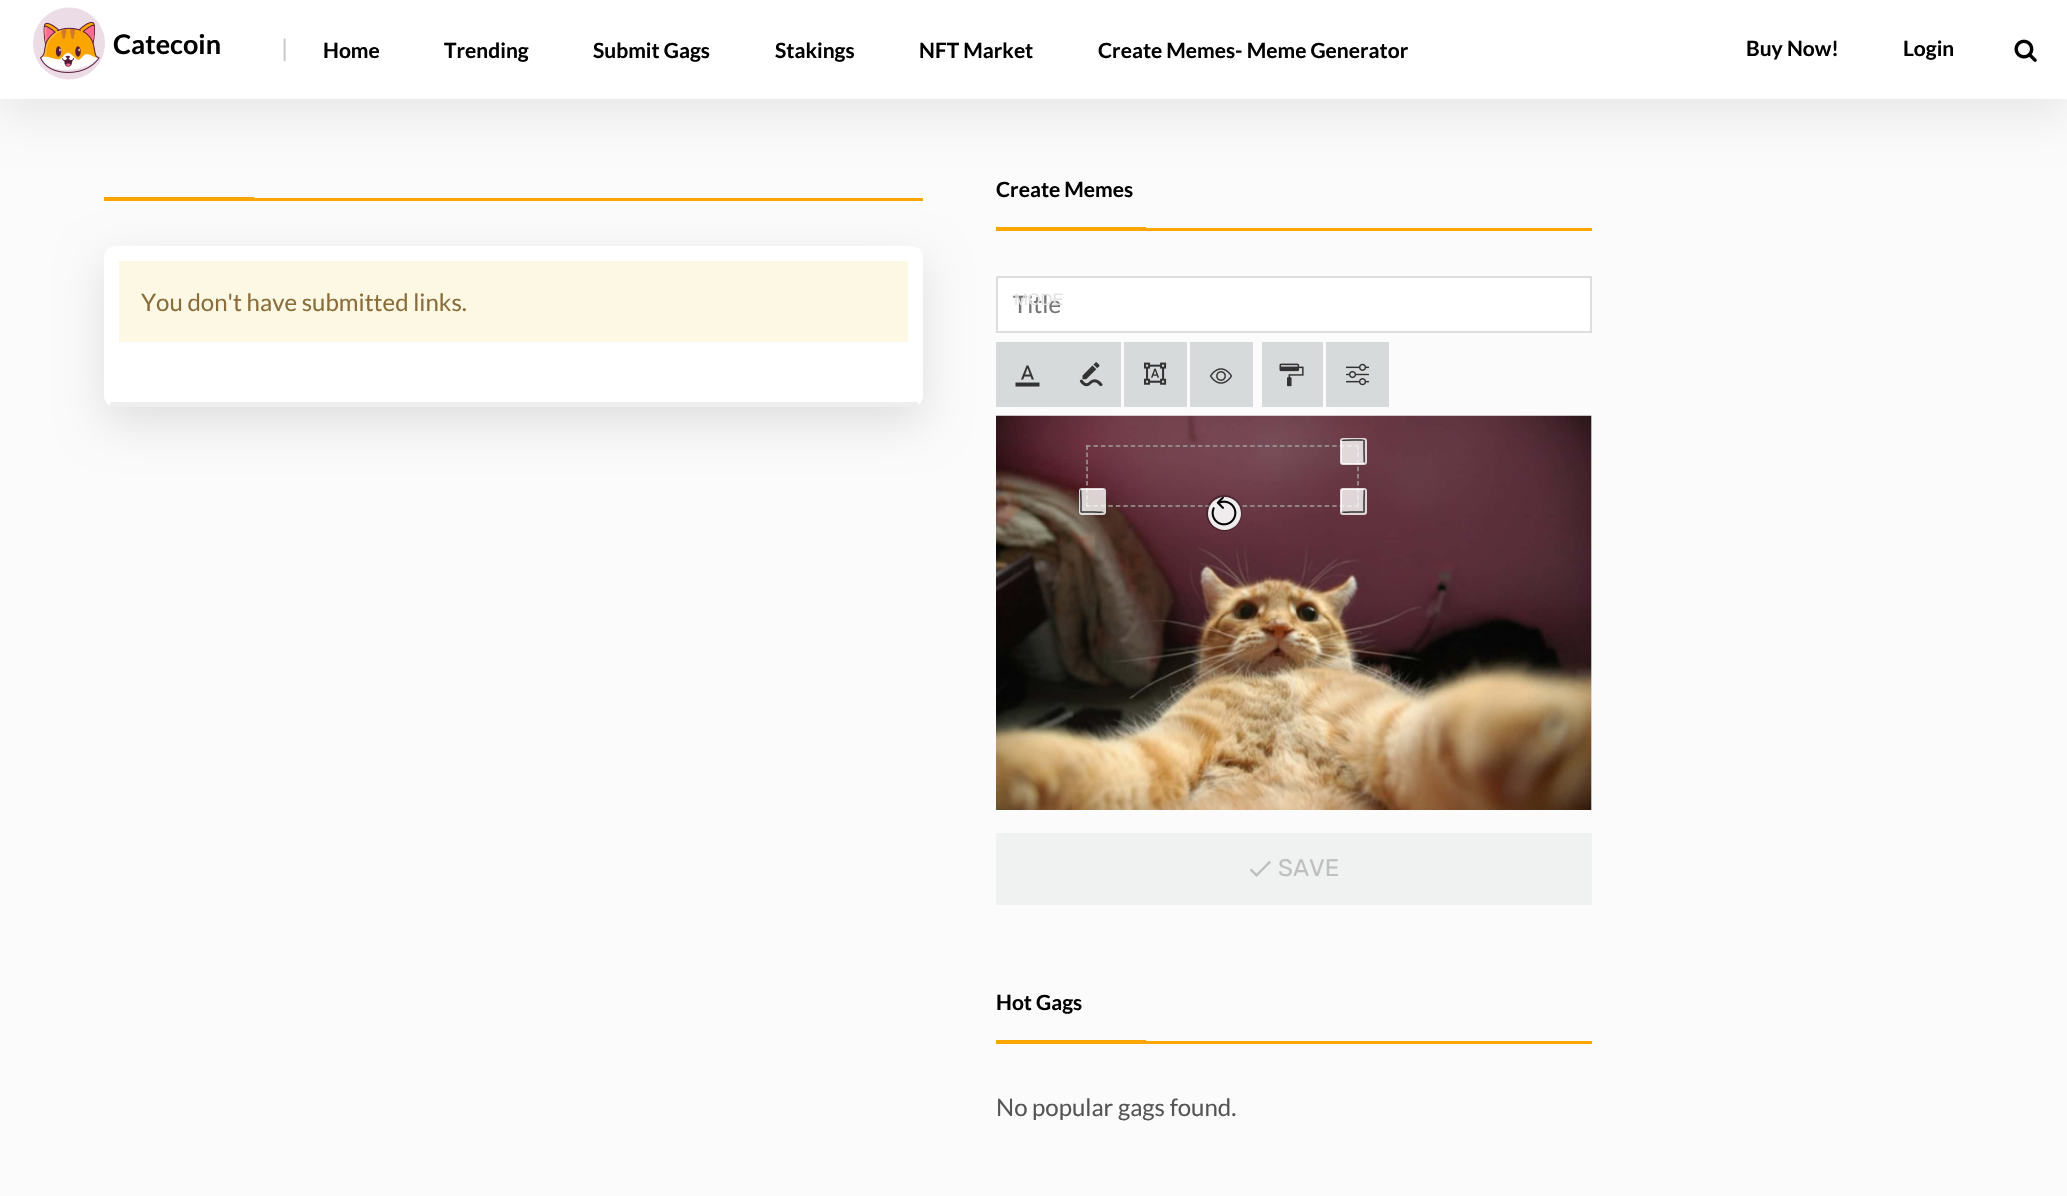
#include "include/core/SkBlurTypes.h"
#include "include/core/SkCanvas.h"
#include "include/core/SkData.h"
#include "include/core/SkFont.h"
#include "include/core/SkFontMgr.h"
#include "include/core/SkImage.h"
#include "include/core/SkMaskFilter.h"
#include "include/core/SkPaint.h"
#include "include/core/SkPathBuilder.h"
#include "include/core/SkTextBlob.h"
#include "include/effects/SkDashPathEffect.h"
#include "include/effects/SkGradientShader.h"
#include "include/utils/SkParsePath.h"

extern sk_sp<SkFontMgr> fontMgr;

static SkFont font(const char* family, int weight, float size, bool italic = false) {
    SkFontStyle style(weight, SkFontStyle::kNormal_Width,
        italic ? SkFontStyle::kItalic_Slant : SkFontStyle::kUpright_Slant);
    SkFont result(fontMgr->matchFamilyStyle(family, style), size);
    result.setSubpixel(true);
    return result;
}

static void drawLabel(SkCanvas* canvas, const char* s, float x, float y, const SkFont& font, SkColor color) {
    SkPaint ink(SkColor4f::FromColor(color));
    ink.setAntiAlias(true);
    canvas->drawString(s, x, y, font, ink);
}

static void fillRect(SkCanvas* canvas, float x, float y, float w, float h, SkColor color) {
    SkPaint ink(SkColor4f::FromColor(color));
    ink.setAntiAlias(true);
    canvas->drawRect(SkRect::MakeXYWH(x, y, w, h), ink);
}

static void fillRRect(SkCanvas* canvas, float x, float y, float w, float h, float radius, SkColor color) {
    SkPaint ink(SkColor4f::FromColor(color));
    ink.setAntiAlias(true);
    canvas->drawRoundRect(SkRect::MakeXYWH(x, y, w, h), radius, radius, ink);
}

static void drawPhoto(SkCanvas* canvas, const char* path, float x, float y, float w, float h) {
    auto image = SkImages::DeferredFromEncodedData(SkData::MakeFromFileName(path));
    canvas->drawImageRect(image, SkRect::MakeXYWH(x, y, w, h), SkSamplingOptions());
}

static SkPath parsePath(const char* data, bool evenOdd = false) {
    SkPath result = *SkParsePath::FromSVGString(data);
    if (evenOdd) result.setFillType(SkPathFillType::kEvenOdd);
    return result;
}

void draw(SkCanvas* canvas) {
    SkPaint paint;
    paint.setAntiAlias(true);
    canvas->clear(0xFFFBFBFB);
    paint.setColor(0xFFE6E6E6);
    paint.setMaskFilter(SkMaskFilter::MakeBlur(kNormal_SkBlurStyle, 22.5f));
    canvas->drawRect(SkRect::MakeXYWH(0, 15, 2067, 99), paint);
    paint.setMaskFilter(nullptr);
    fillRect(canvas, 0, 0, 2067, 99, 0xFFFFFFFF);
    drawPhoto(canvas, "assets/img1.png", 33, 7, 72, 73);
    SkFont font1 = font("Lato", 700, 27);
    drawLabel(canvas, "Catecoin", 113, 54, font1, 0xFF000000);
    SkFont font2 = font("Lato", 400, 24);
    drawLabel(canvas, "|", 281, 57, font2, 0xFFC8C8C8);
    SkFont font3 = font("Lato", 700, 21);
    drawLabel(canvas, "Home", 323, 58, font3, 0xFF000000);
    drawLabel(canvas, "Trending", 444, 58, font3, 0xFF000000);
    drawLabel(canvas, "Submit Gags", 593, 58, font3, 0xFF000000);
    drawLabel(canvas, "Stakings", 775, 58, font3, 0xFF000000);
    drawLabel(canvas, "NFT Market", 919, 58, font3, 0xFF000000);
    drawLabel(canvas, "Create Memes- Meme Generator", 1098, 58, font3, 0xFF000000);
    drawLabel(canvas, "Buy Now!", 1746, 56, font3, 0xFF000000);
    drawLabel(canvas, "Login", 1903, 56, font3, 0xFF000000);
    drawPhoto(canvas, "assets/img2.png", 2014, 39, 23, 23);
    fillRect(canvas, 104, 198, 819, 3, 0xFFFBA500);
    fillRect(canvas, 104, 197, 150, 1, 0xFFFBA500);
    paint.setColor(0xFFDEDEDE);
    paint.setMaskFilter(SkMaskFilter::MakeBlur(kNormal_SkBlurStyle, 22.5f));
    canvas->drawRoundRect(SkRect::MakeXYWH(104, 261, 819, 161), 11, 11, paint);
    paint.setMaskFilter(nullptr);
    fillRRect(canvas, 104, 246, 819, 161, 11, 0xFFFFFFFF);
    fillRect(canvas, 110, 402, 808, 5, 0xFFEEEEEE);
    fillRect(canvas, 119, 261, 789, 81, 0xFFFCF8E3);
    drawLabel(canvas, "You don't have submitted links.", 141, 311, font2, 0xFF8A6D3B);
    fillRect(canvas, 996, 228, 596, 3, 0xFFFBA500);
    drawLabel(canvas, "Create Memes", 996, 197, font3, 0xFF000000);
    fillRect(canvas, 996, 227, 150, 1, 0xFFFBA500);
    paint.setColor(0xFFFFFFFF);
    canvas->drawRect(SkRect::MakeXYWH(997, 277, 594, 55), paint);
    paint.setStroke(true);
    paint.setStrokeWidth(2);
    paint.setColor(0xFFDDDDDD);
    canvas->drawRect(SkRect::MakeXYWH(997, 277, 594, 55), paint);
    drawLabel(canvas, "Title", 1013, 313, font2, 0xFF757575);
    SkFont font4 = font("Liberation Sans", 400, 16.5f);
    drawLabel(canvas, "MODE", 1014, 305, font4, 0xFFE3E3E3);
    fillRect(canvas, 996, 342, 125, 65, 0xFFD7DADA);
    drawPhoto(canvas, "assets/img3.png", 1015, 365, 25, 22);
    drawPhoto(canvas, "assets/img4.png", 1079, 362, 24, 25);
    fillRect(canvas, 1124, 342, 63, 65, 0xFFD7DADA);
    drawPhoto(canvas, "assets/img5.png", 1144, 362, 23, 23);
    fillRect(canvas, 1190, 342, 63, 65, 0xFFD7DADA);
    drawPhoto(canvas, "assets/img6.png", 1209, 368, 24, 16);
    fillRect(canvas, 1262, 342, 61, 65, 0xFFD7DADA);
    drawPhoto(canvas, "assets/img7.png", 1279, 363, 25, 24);
    fillRect(canvas, 1326, 342, 63, 65, 0xFFD7DADA);
    drawPhoto(canvas, "assets/img8.png", 1346, 363, 23, 23);
    fillRect(canvas, 1591, 416, 1, 394, 0xFFEBEEEE);
    drawPhoto(canvas, "assets/img9.png", 996, 415, 596, 395);
    paint.setStrokeWidth(1.5f);
    paint.setColor(0xFF9D9D9D);
    paint.setPathEffect(SkDashPathEffect::Make({{4.5f, 2.96f}}, 0));
    canvas->drawPath(parsePath("M1086 446H1359"), paint);
    paint.setPathEffect(nullptr);
    paint.setPathEffect(SkDashPathEffect::Make({{4.5f, 2.62f}}, 0));
    canvas->drawPath(parsePath("M1358 445.5V507"), paint);
    paint.setPathEffect(nullptr);
    paint.setPathEffect(SkDashPathEffect::Make({{4.5f, 2.96f}}, 0));
    canvas->drawPath(parsePath("M1086 506H1359"), paint);
    paint.setPathEffect(nullptr);
    paint.setPathEffect(SkDashPathEffect::Make({{4.5f, 2.62f}}, 0));
    canvas->drawPath(parsePath("M1087 445.5V507"), paint);
    paint.setPathEffect(nullptr);
    paint.setStrokeWidth(2);
    paint.setColor(0xCCFFFFFF);
    canvas->drawRoundRect(SkRect::MakeXYWH(1341, 439, 25, 25), 2, 2, paint);
    fillRRect(canvas, 1341, 440, 24, 24, 1.5f, 0xCCFFFFFF);
    paint.setStrokeWidth(1.5f);
    paint.setColor(0xFF333333);
    canvas->drawPath(parsePath("M1342 440.5C1342.5 440 1351.5 440 1353 440H1360C1365 440 1364 439.5 1364 444.5V451.5C1364 453 1364.5 462 1364 462.5"), paint);
    paint.setStrokeWidth(2);
    paint.setColor(0xCCFFFFFF);
    canvas->drawRoundRect(SkRect::MakeXYWH(1080, 489, 25, 25), 2, 2, paint);
    fillRRect(canvas, 1080, 489, 24, 24, 1.5f, 0xCCFFFFFF);
    paint.setStrokeWidth(1.5f);
    paint.setColor(0xFF333333);
    canvas->drawPath(parsePath("M1103 512C1102.5 512.5 1093.5 512 1092 512H1085C1080 512 1081 513 1081 508V501C1081 499.5 1080.5 490.5 1081 490"), paint);
    paint.setStrokeWidth(2);
    paint.setColor(0x4D000000);
    canvas->drawCircle(1224, 513, 17, paint);
    paint.setStroke(false);
    paint.setColor(0xE6FFFFFF);
    canvas->drawCircle(1224.5f, 513.5f, 16.5f, paint);
    drawPhoto(canvas, "assets/img10.png", 1211, 497, 26, 29);
    paint.setStroke(true);
    paint.setColor(0xCCFFFFFF);
    canvas->drawRoundRect(SkRect::MakeXYWH(1341, 489, 25, 25), 2, 2, paint);
    fillRRect(canvas, 1341, 489, 24, 24, 1.5f, 0xCCFFFFFF);
    paint.setStrokeWidth(1.5f);
    paint.setColor(0xFF333333);
    canvas->drawPath(parsePath("M1364 490C1364.5 490.5 1364 499.5 1364 501V508C1364 513 1365 512 1360 512H1353C1351.5 512 1342.5 512.5 1342 512"), paint);
    fillRect(canvas, 996, 833, 596, 72, 0xFFF0F1F1);
    paint.setStroke(false);
    paint.setColor(0xFFBFBFBF);
    canvas->drawPath(parsePath("M1256.5 873.5L1269.5 860.5L1271 862.5L1256.5 877L1249.5 870L1251.5 868.5Z"), paint);
    SkFont font5 = font("Rubik", 400, 24);
    drawLabel(canvas, "SAVE", 1278, 876, font5, 0xFFBFBFBF);
    fillRect(canvas, 996, 1041, 596, 3, 0xFFFBA500);
    drawLabel(canvas, "Hot Gags", 996, 1010, font3, 0xFF000000);
    fillRect(canvas, 996, 1040, 150, 1, 0xFFFBA500);
    drawLabel(canvas, "No popular gags found.", 996, 1116, font2, 0xFF555555);
}
